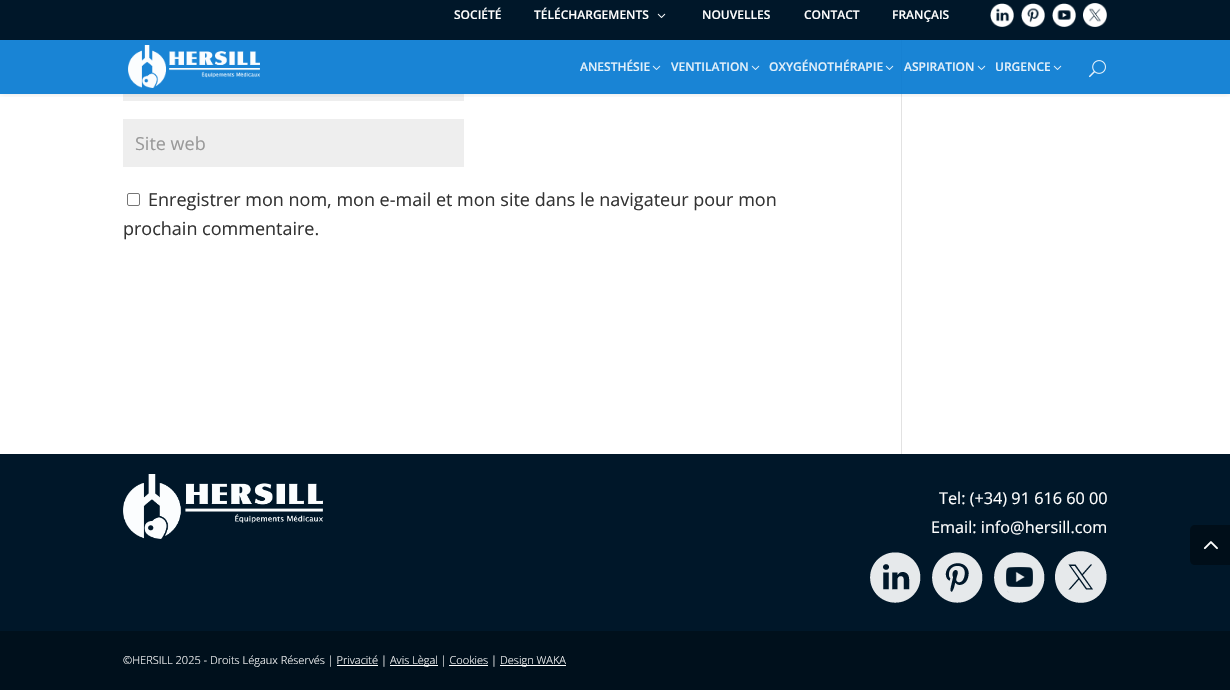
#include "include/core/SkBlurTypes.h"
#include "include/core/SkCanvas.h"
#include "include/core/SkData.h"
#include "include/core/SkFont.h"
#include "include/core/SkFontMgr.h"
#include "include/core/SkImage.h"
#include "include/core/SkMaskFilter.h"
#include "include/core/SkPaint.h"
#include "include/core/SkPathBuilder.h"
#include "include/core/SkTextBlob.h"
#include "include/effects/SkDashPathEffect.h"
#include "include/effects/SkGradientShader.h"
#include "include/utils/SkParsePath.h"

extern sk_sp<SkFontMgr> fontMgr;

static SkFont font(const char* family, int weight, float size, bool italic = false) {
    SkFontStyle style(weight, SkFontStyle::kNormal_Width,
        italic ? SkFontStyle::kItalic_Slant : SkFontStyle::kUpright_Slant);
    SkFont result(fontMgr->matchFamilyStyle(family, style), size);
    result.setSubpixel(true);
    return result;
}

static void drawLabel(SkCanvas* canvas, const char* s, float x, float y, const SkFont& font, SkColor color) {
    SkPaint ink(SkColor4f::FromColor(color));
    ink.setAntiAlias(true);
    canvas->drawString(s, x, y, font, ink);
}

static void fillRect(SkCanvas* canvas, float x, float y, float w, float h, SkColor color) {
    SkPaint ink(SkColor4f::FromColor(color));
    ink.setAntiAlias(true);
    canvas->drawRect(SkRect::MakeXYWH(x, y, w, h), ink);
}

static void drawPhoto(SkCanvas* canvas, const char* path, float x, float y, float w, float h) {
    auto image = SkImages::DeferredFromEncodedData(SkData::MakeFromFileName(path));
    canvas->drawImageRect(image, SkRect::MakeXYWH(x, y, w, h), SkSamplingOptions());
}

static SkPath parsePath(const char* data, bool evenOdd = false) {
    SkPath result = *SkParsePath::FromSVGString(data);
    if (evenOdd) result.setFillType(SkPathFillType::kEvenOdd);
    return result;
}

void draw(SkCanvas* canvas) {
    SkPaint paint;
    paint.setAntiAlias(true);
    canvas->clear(0xFFFFFFFF);
    fillRect(canvas, 0, 40, 1230, 54, 0xFF1984D5);
    fillRect(canvas, 123, 94, 341, 7, 0xFFEEEEEE);
    fillRect(canvas, 901, 94, 1, 360, 0xFFE2E2E2);
    fillRect(canvas, 901, 40, 1, 54, 0xFF1781D2);
    canvas->save();
    canvas->clipRect(SkRect::MakeXYWH(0, 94, 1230, 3));
    paint.setColor(0x1A000000);
    paint.setMaskFilter(SkMaskFilter::MakeBlur(kNormal_SkBlurStyle, 3.5f));
    canvas->drawRect(SkRect::MakeXYWH(0, 40, 1230, 54), paint);
    paint.setMaskFilter(nullptr);
    canvas->restore();
    fillRect(canvas, 0, 0, 1230, 40, 0xFF001729);
    SkFont font1 = font("Open Sans", 600, 12);
    drawLabel(canvas, "SOCIÉTÉ", 454, 19, font1, 0xFFFFFFFF);
    drawLabel(canvas, "TÉLÉCHARGEMENTS", 534, 19, font1, 0xFFFFFFFF);
    drawPhoto(canvas, "assets/img1.png", 657, 13, 9, 5);
    drawLabel(canvas, "NOUVELLES", 702, 19, font1, 0xFFFFFFFF);
    drawLabel(canvas, "CONTACT", 804, 19, font1, 0xFFFFFFFF);
    drawLabel(canvas, "FRANÇAIS", 892, 19, font1, 0xFFFFFFFF);
    drawPhoto(canvas, "assets/img2.png", 990, 3, 24, 24);
    drawPhoto(canvas, "assets/img3.png", 1021, 3, 24, 24);
    drawPhoto(canvas, "assets/img4.png", 1052, 3, 24, 24);
    drawPhoto(canvas, "assets/img5.png", 1083, 3, 24, 24);
    drawPhoto(canvas, "assets/img6.png", 128, 45, 132, 43);
    drawLabel(canvas, "ANESTHÉSIE", 580, 71, font1, 0xFFE3F0FA);
    drawPhoto(canvas, "assets/img7.png", 652, 65, 9, 5);
    drawLabel(canvas, "VENTILATION", 671, 71, font1, 0xFFE3F0FA);
    drawPhoto(canvas, "assets/img7.png", 751, 65, 9, 5);
    drawLabel(canvas, "OXYGÉNOTHÉRAPIE", 769, 71, font1, 0xFFE3F0FA);
    drawPhoto(canvas, "assets/img7.png", 885, 65, 9, 5);
    drawLabel(canvas, "ASPIRATION", 904, 71, font1, 0xFFE3F0FA);
    drawPhoto(canvas, "assets/img7.png", 977, 65, 9, 5);
    drawLabel(canvas, "URGENCE", 995, 71, font1, 0xFFE3F0FA);
    drawPhoto(canvas, "assets/img7.png", 1053, 65, 9, 5);
    drawPhoto(canvas, "assets/img8.png", 1089, 60, 17, 18);
    fillRect(canvas, 123, 119, 341, 48, 0xFFEEEEEE);
    SkFont font2 = font("Open Sans", 400, 18);
    drawLabel(canvas, "Site web", 135, 150, font2, 0xFF999999);
    paint.setStroke(true);
    paint.setStrokeWidth(1);
    paint.setColor(0xFF767676);
    canvas->drawRoundRect(SkRect::MakeXYWH(127.5f, 193.5f, 12, 12), 1.5f, 1.5f, paint);
    drawLabel(canvas, "Enregistrer mon nom, mon e-mail et mon site dans le navigateur pour mon", 148, 206, font2, 0xFF333333);
    drawLabel(canvas, "prochain commentaire.", 123, 235, font2, 0xFF333333);
    fillRect(canvas, 0, 454, 1230, 177, 0xFF001729);
    drawPhoto(canvas, "assets/img9.png", 123, 474, 200, 65);
    SkFont font3 = font("Open Sans", 400, 16.25f);
    drawLabel(canvas, "Tel: (+34) 91 616 60 00", 939, 504, font3, 0xFFFFFFFF);
    drawLabel(canvas, "Email: info@hersill.com", 931, 533, font3, 0xFFFFFFFF);
    drawPhoto(canvas, "assets/img10.png", 870, 552, 51, 51);
    drawPhoto(canvas, "assets/img11.png", 932, 552, 51, 51);
    drawPhoto(canvas, "assets/img12.png", 994, 552, 51, 51);
    drawPhoto(canvas, "assets/img13.png", 1055, 551, 52, 52);
    fillRect(canvas, 0, 631, 1230, 59, 0xFF00101C);
    SkFont font4 = font("Open Sans", 300, 11);
    drawLabel(canvas, "©HERSILL 2025 - Droits Légaux Réservés | Privacité |", 123, 664, font4, 0xFFFFFFFF);
    fillRect(canvas, 390, 665, 48, 1, 0xFFFFFFFF);
    drawLabel(canvas, "Avis Lègal | Cookies |", 390, 664, font4, 0xFFFFFFFF);
    fillRect(canvas, 500, 665, 66, 1, 0xFFFFFFFF);
    drawLabel(canvas, "Design WAKA", 500, 664, font4, 0xFFFFFFFF);
    fillRect(canvas, 337, 665, 41, 1, 0xFFFFFFFF);
    fillRect(canvas, 449, 665, 39, 1, 0xFFFFFFFF);
    paint.setStroke(false);
    paint.setColor(0xFF000E19);
    canvas->drawPath(parsePath("M1195 525H1230V565H1195C1192 565 1190 563 1190 560V530C1190 527 1192 525 1195 525Z"), paint);
    drawPhoto(canvas, "assets/img14.png", 1203, 541, 15, 9);
}
